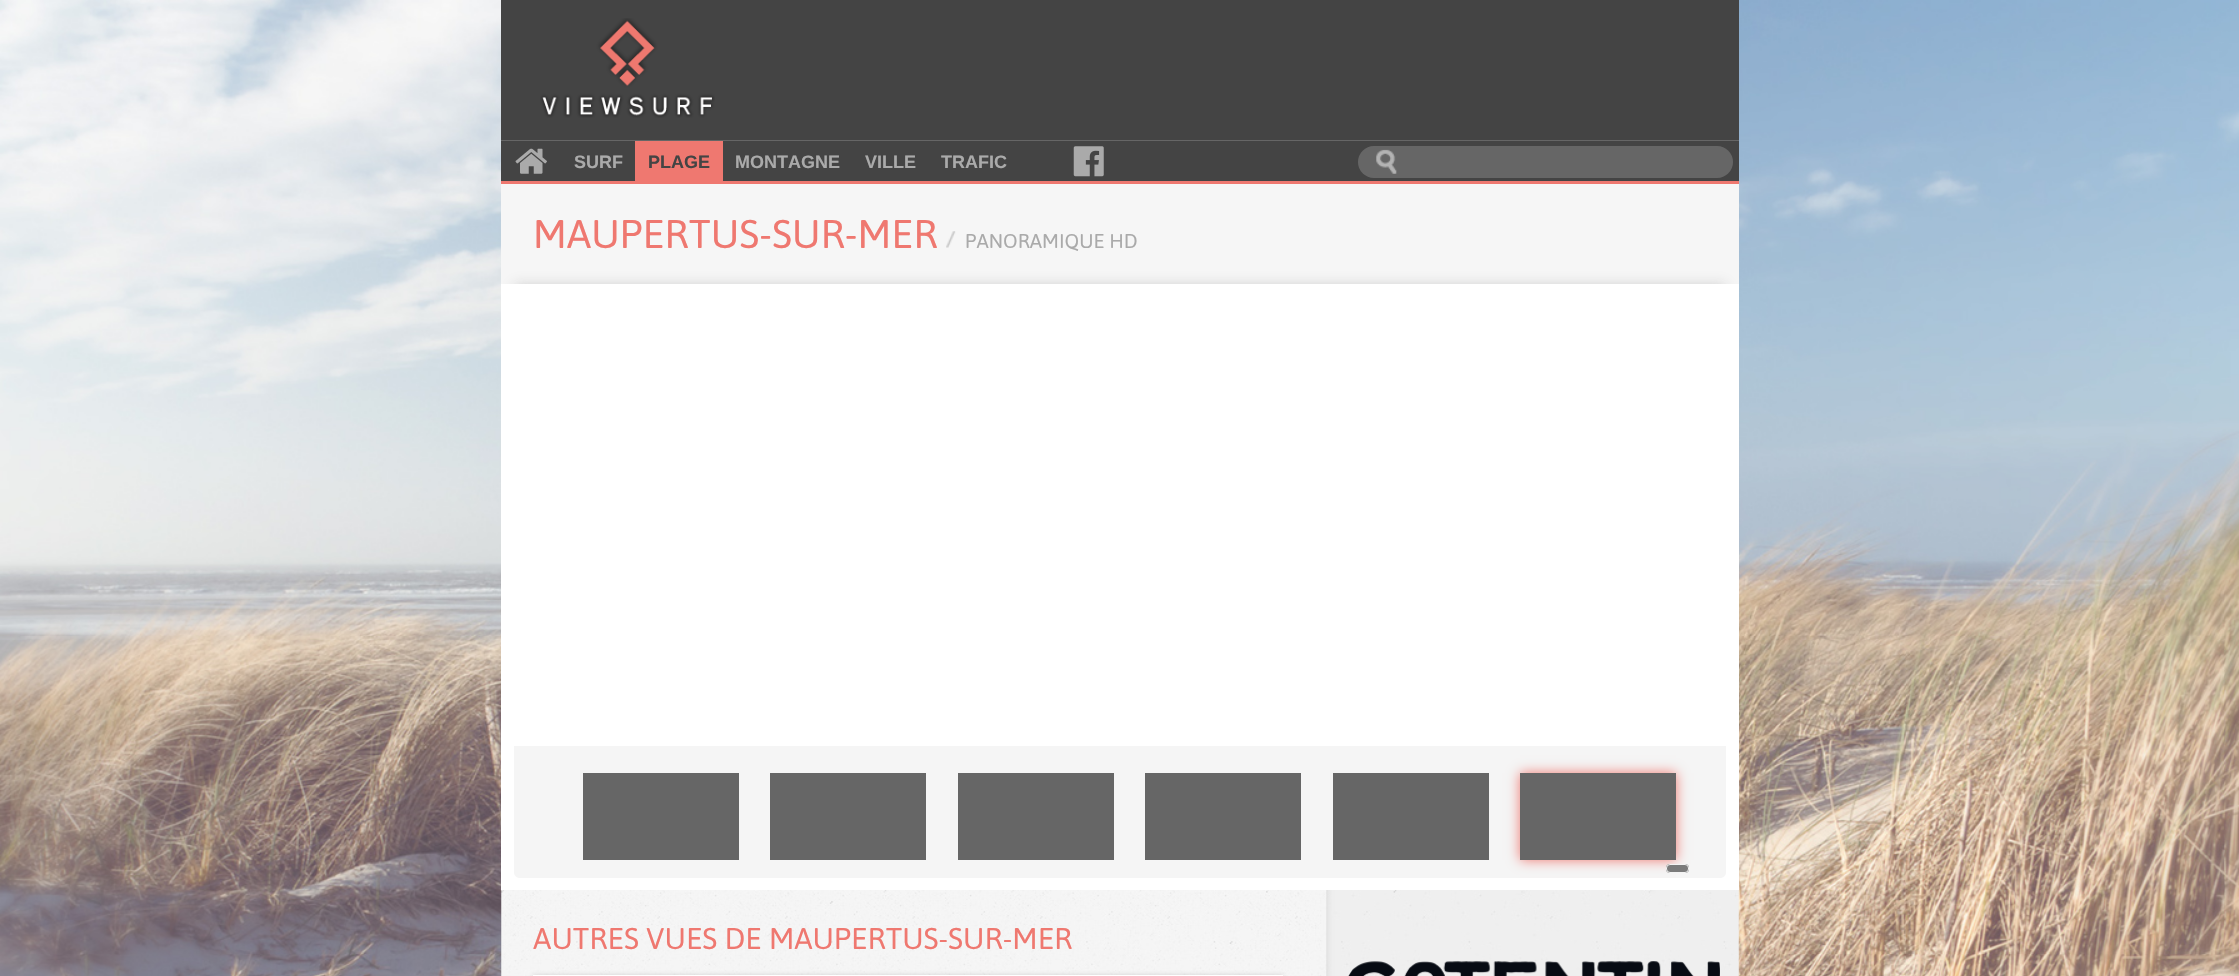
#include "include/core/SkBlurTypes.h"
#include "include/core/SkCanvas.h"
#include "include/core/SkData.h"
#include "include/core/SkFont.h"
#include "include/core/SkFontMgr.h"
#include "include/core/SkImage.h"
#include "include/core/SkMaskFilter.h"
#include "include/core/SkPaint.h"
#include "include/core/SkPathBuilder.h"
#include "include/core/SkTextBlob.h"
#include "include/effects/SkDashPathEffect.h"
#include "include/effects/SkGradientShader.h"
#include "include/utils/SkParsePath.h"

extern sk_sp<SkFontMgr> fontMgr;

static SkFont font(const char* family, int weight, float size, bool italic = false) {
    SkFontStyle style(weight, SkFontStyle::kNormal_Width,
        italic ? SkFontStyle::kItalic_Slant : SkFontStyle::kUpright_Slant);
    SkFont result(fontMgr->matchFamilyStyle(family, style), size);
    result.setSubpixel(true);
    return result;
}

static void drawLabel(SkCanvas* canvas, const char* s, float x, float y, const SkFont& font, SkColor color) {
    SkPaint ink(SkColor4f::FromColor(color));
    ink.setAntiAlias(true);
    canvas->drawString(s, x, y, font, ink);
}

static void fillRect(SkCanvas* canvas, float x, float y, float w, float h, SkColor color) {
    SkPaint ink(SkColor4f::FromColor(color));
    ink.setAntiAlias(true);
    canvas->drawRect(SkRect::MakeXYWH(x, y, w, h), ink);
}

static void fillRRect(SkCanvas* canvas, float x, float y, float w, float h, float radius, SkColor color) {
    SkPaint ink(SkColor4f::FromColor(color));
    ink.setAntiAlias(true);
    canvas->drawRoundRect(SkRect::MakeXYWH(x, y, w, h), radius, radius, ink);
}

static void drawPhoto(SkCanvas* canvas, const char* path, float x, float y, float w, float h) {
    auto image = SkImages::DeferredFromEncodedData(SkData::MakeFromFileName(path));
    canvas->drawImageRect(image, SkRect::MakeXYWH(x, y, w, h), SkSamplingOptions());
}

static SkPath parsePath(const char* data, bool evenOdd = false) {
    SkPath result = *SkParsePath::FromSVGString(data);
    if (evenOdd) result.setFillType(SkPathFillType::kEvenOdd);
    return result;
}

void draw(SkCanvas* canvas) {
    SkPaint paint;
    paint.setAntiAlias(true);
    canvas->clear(0xFFFFFFFF);
    drawPhoto(canvas, "assets/img1.png", 0, 0, 2239, 976);
    fillRect(canvas, 501, 0, 1238, 181, 0xFF444444);
    fillRect(canvas, 501, 181, 1238, 3, 0xFFEF7870);
    drawPhoto(canvas, "assets/img2.png", 540, 18, 175, 100);
    fillRect(canvas, 501, 140, 1238, 1, 0xFF666666);
    drawPhoto(canvas, "assets/img3.png", 515, 148, 32, 26);
    SkFont font1 = font("Liberation Sans", 700, 18);
    drawLabel(canvas, "SURF", 574, 168, font1, 0xFFAAAAAA);
    fillRect(canvas, 635, 141, 88, 40, 0xFFEF7870);
    drawLabel(canvas, "PLAGE", 648, 168, font1, 0xFF444444);
    drawLabel(canvas, "MONTAGNE", 735, 168, font1, 0xFFAAAAAA);
    drawLabel(canvas, "VILLE", 865, 168, font1, 0xFFAAAAAA);
    drawLabel(canvas, "TRAFIC", 941, 168, font1, 0xFFAAAAAA);
    drawPhoto(canvas, "assets/img4.png", 1073, 146, 31, 31);
    fillRRect(canvas, 1358, 146, 375, 32, 16, 0xFF666666);
    drawPhoto(canvas, "assets/img5.png", 1376, 149, 21, 25);
    fillRect(canvas, 501, 184, 1238, 100, 0xFFF6F6F6);
    SkFont font2 = font("Asap", 400, 40);
    drawLabel(canvas, "MAUPERTUS-SUR-MER", 533, 248, font2, 0xFFEF7870);
    drawPhoto(canvas, "assets/img6.png", 946, 231, 10, 17);
    SkFont font3 = font("Asap", 400, 20);
    drawLabel(canvas, "PANORAMIQUE HD", 965, 248, font3, 0xFFAAAAAA);
    paint.setColor(0x4D808080);
    paint.setMaskFilter(SkMaskFilter::MakeBlur(kNormal_SkBlurStyle, 6));
    canvas->drawRect(SkRect::MakeXYWH(514, 284, 1212, 581), paint);
    paint.setMaskFilter(nullptr);
    fillRect(canvas, 501, 284, 1238, 606, 0xFFFFFFFF);
    paint.setColor(0xFFF5F5F5);
    canvas->drawPath(parsePath("M514 746H1726V872C1726 875.5 1723.5 878 1720 878H520C516.5 878 514 875.5 514 872Z"), paint);
    fillRect(canvas, 583, 773, 156, 87, 0xFF666666);
    fillRect(canvas, 770, 773, 156, 87, 0xFF666666);
    fillRect(canvas, 958, 773, 156, 87, 0xFF666666);
    fillRect(canvas, 1145, 773, 156, 87, 0xFF666666);
    fillRect(canvas, 1333, 773, 156, 87, 0xFF666666);
    canvas->save();
    canvas->clipPath(parsePath("M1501 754H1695V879H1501ZM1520 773H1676V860H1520Z", true), true);
    paint.setColor(0xFFEF7870);
    paint.setMaskFilter(SkMaskFilter::MakeBlur(kNormal_SkBlurStyle, 6));
    canvas->drawRect(SkRect::MakeXYWH(1520, 773, 156, 87), paint);
    paint.setMaskFilter(nullptr);
    canvas->restore();
    fillRect(canvas, 1520, 773, 156, 87, 0xFF666666);
    fillRRect(canvas, 1666, 864, 23, 9, 4, 0xFF7B7B7B);
    paint.setStroke(true);
    paint.setStrokeWidth(1);
    paint.setColor(0xE6FFFFFF);
    canvas->drawRoundRect(SkRect::MakeXYWH(1666.5f, 864.5f, 22, 8), 3.5f, 3.5f, paint);
    drawPhoto(canvas, "assets/img7.png", 501, 890, 1238, 86);
    SkFont font4 = font("Asap", 400, 30);
    drawLabel(canvas, "AUTRES VUES DE MAUPERTUS-SUR-MER", 533, 949, font4, 0xFFEF7870);
    paint.setStroke(false);
    paint.setColor(0x4D808080);
    paint.setMaskFilter(SkMaskFilter::MakeBlur(kNormal_SkBlurStyle, 2.5f));
    canvas->drawRect(SkRect::MakeXYWH(533, 975, 750, 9), paint);
    paint.setMaskFilter(nullptr);
    fillRect(canvas, 533, 975, 750, 1, 0xFFFFFFFF);
    drawPhoto(canvas, "assets/img8.png", 1348, 961, 372, 15);
}
